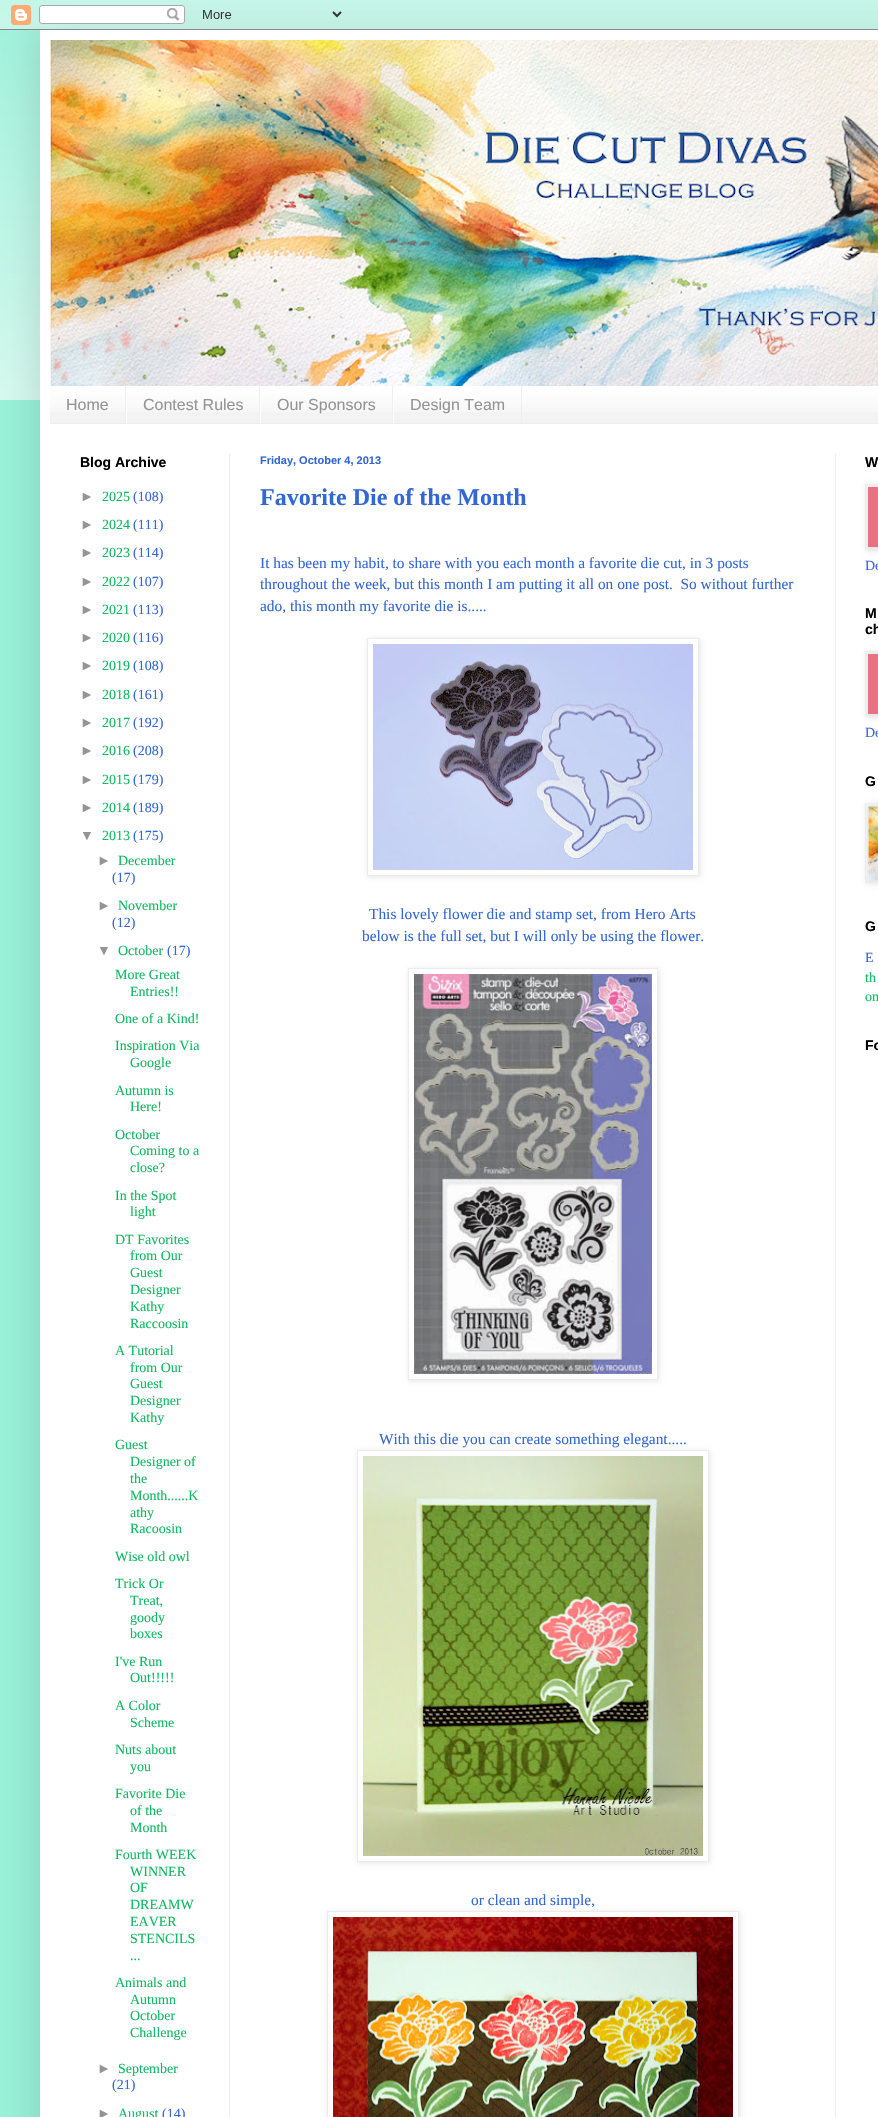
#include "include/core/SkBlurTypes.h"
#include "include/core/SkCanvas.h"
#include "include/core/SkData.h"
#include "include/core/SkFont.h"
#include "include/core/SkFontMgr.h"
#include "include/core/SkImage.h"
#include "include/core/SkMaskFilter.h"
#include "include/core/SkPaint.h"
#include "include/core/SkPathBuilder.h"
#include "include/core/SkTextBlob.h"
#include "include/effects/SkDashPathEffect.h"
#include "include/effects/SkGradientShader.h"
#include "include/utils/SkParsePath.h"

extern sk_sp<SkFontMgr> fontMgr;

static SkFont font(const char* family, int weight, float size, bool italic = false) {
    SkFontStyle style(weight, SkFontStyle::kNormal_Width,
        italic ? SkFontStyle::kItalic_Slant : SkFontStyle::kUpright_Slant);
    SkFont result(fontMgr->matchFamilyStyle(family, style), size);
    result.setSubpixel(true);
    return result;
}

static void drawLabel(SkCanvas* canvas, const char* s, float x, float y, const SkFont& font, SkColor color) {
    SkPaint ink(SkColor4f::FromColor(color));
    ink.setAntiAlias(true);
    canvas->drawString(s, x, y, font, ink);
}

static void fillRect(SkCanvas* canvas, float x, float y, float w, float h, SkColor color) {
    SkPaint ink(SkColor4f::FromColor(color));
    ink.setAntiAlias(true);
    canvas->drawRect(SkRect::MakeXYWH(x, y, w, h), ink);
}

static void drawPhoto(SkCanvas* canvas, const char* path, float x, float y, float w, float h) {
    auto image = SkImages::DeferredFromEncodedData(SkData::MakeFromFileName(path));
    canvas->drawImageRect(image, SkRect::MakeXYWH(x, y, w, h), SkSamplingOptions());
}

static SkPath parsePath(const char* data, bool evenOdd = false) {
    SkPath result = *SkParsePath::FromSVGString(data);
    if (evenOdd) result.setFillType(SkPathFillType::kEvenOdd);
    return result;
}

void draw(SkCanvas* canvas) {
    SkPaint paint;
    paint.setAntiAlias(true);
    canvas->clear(0xFF99F2D9);
    drawPhoto(canvas, "assets/img1.png", 0, 0, 878, 400);
    paint.setColor(0x26000000);
    paint.setMaskFilter(SkMaskFilter::MakeBlur(kNormal_SkBlurStyle, 20));
    canvas->drawRect(SkRect::MakeXYWH(40, 30, 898, 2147), paint);
    paint.setMaskFilter(nullptr);
    drawPhoto(canvas, "assets/img2.png", 0, 0, 878, 30);
    fillRect(canvas, 40, 30, 838, 2087, 0xFFFFFFFF);
    drawPhoto(canvas, "assets/img3.png", 50, 40, 828, 346);
    fillRect(canvas, 50, 387, 828, 36, 0xFFF3F3F3);
    drawPhoto(canvas, "assets/img4.png", 50, 386, 828, 26);
    fillRect(canvas, 50, 423, 828, 1, 0xFFEEEEEE);
    fillRect(canvas, 125, 386, 1, 37, 0xFFEEEEEE);
    SkFont font1 = font("Liberation Sans", 400, 16);
    drawLabel(canvas, "Home", 66, 410, font1, 0xFF949494);
    fillRect(canvas, 259, 386, 1, 37, 0xFFEEEEEE);
    fillRect(canvas, 126, 395, 1, 28, 0xFFFFFFFF);
    drawLabel(canvas, "Contest Rules", 143, 410, font1, 0xFF949494);
    fillRect(canvas, 392, 386, 1, 37, 0xFFEEEEEE);
    fillRect(canvas, 260, 395, 1, 28, 0xFFFFFFFF);
    drawLabel(canvas, "Our Sponsors", 277, 410, font1, 0xFF949494);
    fillRect(canvas, 521, 386, 1, 37, 0xFFEEEEEE);
    fillRect(canvas, 393, 395, 1, 28, 0xFFFFFFFF);
    drawLabel(canvas, "Design Team", 410, 410, font1, 0xFF949494);
    fillRect(canvas, 229, 454, 1, 1663, 0xFFECECEC);
    fillRect(canvas, 835, 454, 1, 1663, 0xFFECECEC);
    SkFont font2 = font("Liberation Sans", 700, 14);
    drawLabel(canvas, "Blog Archive", 80, 467, font2, 0xFF000000);
    SkFont font3 = font("Liberation Sans", 400, 14);
    drawLabel(canvas, "►", 80, 501, font3, 0xFF949494);
    SkFont font4 = font("Liberation Serif", 400, 14);
    drawLabel(canvas, "2025", 102, 501, font4, 0xFF0FB961);
    drawLabel(canvas, "(108)", 133, 501, font4, 0xFF3367D6);
    drawLabel(canvas, "►", 80, 529, font3, 0xFF949494);
    drawLabel(canvas, "2024", 102, 529, font4, 0xFF0FB961);
    drawLabel(canvas, "(111)", 133, 529, font4, 0xFF3367D6);
    drawLabel(canvas, "►", 80, 557, font3, 0xFF949494);
    drawLabel(canvas, "2023", 102, 557, font4, 0xFF0FB961);
    drawLabel(canvas, "(114)", 133, 557, font4, 0xFF3367D6);
    drawLabel(canvas, "►", 80, 586, font3, 0xFF949494);
    drawLabel(canvas, "2022", 102, 586, font4, 0xFF0FB961);
    drawLabel(canvas, "(107)", 133, 586, font4, 0xFF3367D6);
    drawLabel(canvas, "►", 80, 614, font3, 0xFF949494);
    drawLabel(canvas, "2021", 102, 614, font4, 0xFF0FB961);
    drawLabel(canvas, "(113)", 133, 614, font4, 0xFF3367D6);
    drawLabel(canvas, "►", 80, 642, font3, 0xFF949494);
    drawLabel(canvas, "2020", 102, 642, font4, 0xFF0FB961);
    drawLabel(canvas, "(116)", 133, 642, font4, 0xFF3367D6);
    drawLabel(canvas, "►", 80, 670, font3, 0xFF949494);
    drawLabel(canvas, "2019", 102, 670, font4, 0xFF0FB961);
    drawLabel(canvas, "(108)", 133, 670, font4, 0xFF3367D6);
    drawLabel(canvas, "►", 80, 699, font3, 0xFF949494);
    drawLabel(canvas, "2018", 102, 699, font4, 0xFF0FB961);
    drawLabel(canvas, "(161)", 133, 699, font4, 0xFF3367D6);
    drawLabel(canvas, "►", 80, 727, font3, 0xFF949494);
    drawLabel(canvas, "2017", 102, 727, font4, 0xFF0FB961);
    drawLabel(canvas, "(192)", 133, 727, font4, 0xFF3367D6);
    drawLabel(canvas, "►", 80, 755, font3, 0xFF949494);
    drawLabel(canvas, "2016", 102, 755, font4, 0xFF0FB961);
    drawLabel(canvas, "(208)", 133, 755, font4, 0xFF3367D6);
    drawLabel(canvas, "►", 80, 784, font3, 0xFF949494);
    drawLabel(canvas, "2015", 102, 784, font4, 0xFF0FB961);
    drawLabel(canvas, "(179)", 133, 784, font4, 0xFF3367D6);
    drawLabel(canvas, "►", 80, 812, font3, 0xFF949494);
    drawLabel(canvas, "2014", 102, 812, font4, 0xFF0FB961);
    drawLabel(canvas, "(189)", 133, 812, font4, 0xFF3367D6);
    drawLabel(canvas, "▼", 80, 840, font3, 0xFF949494);
    drawLabel(canvas, "2013", 102, 840, font4, 0xFF0FB961);
    drawLabel(canvas, "(175)", 133, 840, font4, 0xFF3367D6);
    drawLabel(canvas, "►", 97, 865, font3, 0xFF949494);
    drawLabel(canvas, "December", 118, 865, font4, 0xFF0FB961);
    drawLabel(canvas, "(17)", 112, 882, font4, 0xFF3367D6);
    drawLabel(canvas, "►", 97, 910, font3, 0xFF949494);
    drawLabel(canvas, "November", 118, 910, font4, 0xFF0FB961);
    drawLabel(canvas, "(12)", 112, 927, font4, 0xFF3367D6);
    drawLabel(canvas, "▼", 97, 955, font3, 0xFF949494);
    drawLabel(canvas, "October", 118, 955, font4, 0xFF0FB961);
    drawLabel(canvas, "(17)", 167, 955, font4, 0xFF3367D6);
    drawLabel(canvas, "More Great", 115, 979, font4, 0xFF0FB961);
    drawLabel(canvas, "Entries!!", 130, 996, font4, 0xFF0FB961);
    drawLabel(canvas, "One of a Kind!", 115, 1023, font4, 0xFF0FB961);
    drawLabel(canvas, "Inspiration Via", 115, 1050, font4, 0xFF0FB961);
    drawLabel(canvas, "Google", 130, 1067, font4, 0xFF0FB961);
    drawLabel(canvas, "Autumn is", 115, 1095, font4, 0xFF0FB961);
    drawLabel(canvas, "Here!", 130, 1111, font4, 0xFF0FB961);
    drawLabel(canvas, "October", 115, 1139, font4, 0xFF0FB961);
    drawLabel(canvas, "Coming to a", 130, 1155, font4, 0xFF0FB961);
    drawLabel(canvas, "close?", 130, 1172, font4, 0xFF0FB961);
    drawLabel(canvas, "In the Spot", 115, 1200, font4, 0xFF0FB961);
    drawLabel(canvas, "light", 130, 1216, font4, 0xFF0FB961);
    drawLabel(canvas, "DT Favorites", 115, 1244, font4, 0xFF0FB961);
    drawLabel(canvas, "from Our", 130, 1260, font4, 0xFF0FB961);
    drawLabel(canvas, "Guest", 130, 1277, font4, 0xFF0FB961);
    drawLabel(canvas, "Designer", 130, 1294, font4, 0xFF0FB961);
    drawLabel(canvas, "Kathy", 130, 1311, font4, 0xFF0FB961);
    drawLabel(canvas, "Raccoosin", 130, 1328, font4, 0xFF0FB961);
    drawLabel(canvas, "A Tutorial", 115, 1355, font4, 0xFF0FB961);
    drawLabel(canvas, "from Our", 130, 1372, font4, 0xFF0FB961);
    drawLabel(canvas, "Guest", 130, 1388, font4, 0xFF0FB961);
    drawLabel(canvas, "Designer", 130, 1405, font4, 0xFF0FB961);
    drawLabel(canvas, "Kathy", 130, 1422, font4, 0xFF0FB961);
    drawLabel(canvas, "Guest", 115, 1449, font4, 0xFF0FB961);
    drawLabel(canvas, "Designer of", 130, 1466, font4, 0xFF0FB961);
    drawLabel(canvas, "the", 130, 1483, font4, 0xFF0FB961);
    drawLabel(canvas, "Month......K", 130, 1500, font4, 0xFF0FB961);
    drawLabel(canvas, "athy", 130, 1517, font4, 0xFF0FB961);
    drawLabel(canvas, "Racoosin", 130, 1533, font4, 0xFF0FB961);
    drawLabel(canvas, "Wise old owl", 115, 1561, font4, 0xFF0FB961);
    drawLabel(canvas, "Trick Or", 115, 1588, font4, 0xFF0FB961);
    drawLabel(canvas, "Treat,", 130, 1605, font4, 0xFF0FB961);
    drawLabel(canvas, "goody", 130, 1622, font4, 0xFF0FB961);
    drawLabel(canvas, "boxes", 130, 1638, font4, 0xFF0FB961);
    drawLabel(canvas, "I've Run", 115, 1666, font4, 0xFF0FB961);
    drawLabel(canvas, "Out!!!!!", 130, 1682, font4, 0xFF0FB961);
    drawLabel(canvas, "A Color", 115, 1710, font4, 0xFF0FB961);
    drawLabel(canvas, "Scheme", 130, 1727, font4, 0xFF0FB961);
    drawLabel(canvas, "Nuts about", 115, 1754, font4, 0xFF0FB961);
    drawLabel(canvas, "you", 130, 1771, font4, 0xFF0FB961);
    drawLabel(canvas, "Favorite Die", 115, 1798, font4, 0xFF0FB961);
    drawLabel(canvas, "of the", 130, 1815, font4, 0xFF0FB961);
    drawLabel(canvas, "Month", 130, 1832, font4, 0xFF0FB961);
    drawLabel(canvas, "Fourth WEEK", 115, 1859, font4, 0xFF0FB961);
    drawLabel(canvas, "WINNER", 130, 1876, font4, 0xFF0FB961);
    drawLabel(canvas, "OF", 130, 1892, font4, 0xFF0FB961);
    drawLabel(canvas, "DREAMW", 130, 1909, font4, 0xFF0FB961);
    drawLabel(canvas, "EAVER", 130, 1926, font4, 0xFF0FB961);
    drawLabel(canvas, "STENCILS", 130, 1943, font4, 0xFF0FB961);
    drawLabel(canvas, "...", 130, 1960, font4, 0xFF0FB961);
    drawLabel(canvas, "Animals and", 115, 1987, font4, 0xFF0FB961);
    drawLabel(canvas, "Autumn", 130, 2004, font4, 0xFF0FB961);
    drawLabel(canvas, "October", 130, 2020, font4, 0xFF0FB961);
    drawLabel(canvas, "Challenge", 130, 2037, font4, 0xFF0FB961);
    drawLabel(canvas, "►", 97, 2073, font3, 0xFF949494);
    drawLabel(canvas, "September", 118, 2073, font4, 0xFF0FB961);
    drawLabel(canvas, "(21)", 112, 2089, font4, 0xFF3367D6);
    drawLabel(canvas, "►", 97, 2118, font3, 0xFF949494);
    drawLabel(canvas, "August", 118, 2118, font4, 0xFF0FB961);
    drawLabel(canvas, "(14)", 162, 2118, font4, 0xFF3367D6);
    SkFont font5 = font("Liberation Sans", 700, 11);
    drawLabel(canvas, "Friday, October 4, 2013", 260, 464, font5, 0xFF3367D6);
    SkFont font6 = font("Liberation Serif", 700, 24);
    drawLabel(canvas, "Favorite Die of the Month", 260, 505, font6, 0xFF3367D6);
    SkFont font7 = font("Liberation Serif", 400, 15.4f);
    drawLabel(canvas, "It has been my habit, to share with you each month a favorite die cut, in 3 posts", 260, 568, font7, 0xFF3367D6);
    drawLabel(canvas, "throughout the week, but this month I am putting it all on one post.  So without further", 260, 589, font7, 0xFF3367D6);
    drawLabel(canvas, "ado, this month my favorite die is.....", 260, 611, font7, 0xFF3367D6);
    canvas->save();
    canvas->clipPath(parsePath("M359 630H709V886H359ZM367 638H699V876H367Z", true), true);
    paint.setColor(0x1A000000);
    paint.setMaskFilter(SkMaskFilter::MakeBlur(kNormal_SkBlurStyle, 2.5f));
    canvas->drawRect(SkRect::MakeXYWH(368, 639, 332, 238), paint);
    paint.setMaskFilter(nullptr);
    canvas->restore();
    paint.setStroke(true);
    paint.setStrokeWidth(1);
    paint.setColor(0xFFECECEC);
    canvas->drawRect(SkRect::MakeXYWH(367.5f, 638.5f, 331, 237), paint);
    drawPhoto(canvas, "assets/img5.png", 373, 644, 320, 226);
    drawLabel(canvas, "This lovely flower die and stamp set, from Hero Arts", 369, 919, font7, 0xFF3367D6);
    drawLabel(canvas, "below is the full set, but I will only be using the flower.", 362, 941, font7, 0xFF3367D6);
    canvas->save();
    canvas->clipPath(parsePath("M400 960H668V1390H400ZM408 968H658V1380H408Z", true), true);
    paint.setStroke(false);
    paint.setColor(0x1A000000);
    paint.setMaskFilter(SkMaskFilter::MakeBlur(kNormal_SkBlurStyle, 2.5f));
    canvas->drawRect(SkRect::MakeXYWH(409, 969, 250, 412), paint);
    paint.setMaskFilter(nullptr);
    canvas->restore();
    paint.setStroke(true);
    paint.setColor(0xFFECECEC);
    canvas->drawRect(SkRect::MakeXYWH(408.5f, 968.5f, 249, 411), paint);
    drawPhoto(canvas, "assets/img6.png", 414, 974, 238, 400);
    drawLabel(canvas, "With this die you can create something elegant.....", 379, 1444, font7, 0xFF3367D6);
    canvas->save();
    canvas->clipPath(parsePath("M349 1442H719V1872H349ZM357 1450H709V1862H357Z", true), true);
    paint.setStroke(false);
    paint.setColor(0x1A000000);
    paint.setMaskFilter(SkMaskFilter::MakeBlur(kNormal_SkBlurStyle, 2.5f));
    canvas->drawRect(SkRect::MakeXYWH(358, 1451, 352, 412), paint);
    paint.setMaskFilter(nullptr);
    canvas->restore();
    paint.setStroke(true);
    paint.setColor(0xFFECECEC);
    canvas->drawRect(SkRect::MakeXYWH(357.5f, 1450.5f, 351, 411), paint);
    drawPhoto(canvas, "assets/img7.png", 363, 1456, 340, 400);
    drawLabel(canvas, "or clean and simple,", 471, 1905, font7, 0xFF3367D6);
    canvas->save();
    canvas->clipPath(parsePath("M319 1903H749V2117H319ZM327 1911H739V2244H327Z", true), true);
    paint.setStroke(false);
    paint.setColor(0x1A000000);
    paint.setMaskFilter(SkMaskFilter::MakeBlur(kNormal_SkBlurStyle, 2.5f));
    canvas->drawRect(SkRect::MakeXYWH(328, 1912, 412, 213), paint);
    paint.setMaskFilter(nullptr);
    canvas->restore();
    paint.setStroke(true);
    paint.setColor(0xFFECECEC);
    canvas->drawRect(SkRect::MakeXYWH(327.5f, 1911.5f, 411, 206), paint);
    drawPhoto(canvas, "assets/img8.png", 333, 1917, 400, 200);
    drawLabel(canvas, "W", 865, 467, font2, 0xFF000000);
    paint.setStroke(false);
    paint.setColor(0x1A000000);
    paint.setMaskFilter(SkMaskFilter::MakeBlur(kNormal_SkBlurStyle, 2.5f));
    canvas->drawRect(SkRect::MakeXYWH(866, 485, 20, 66), paint);
    paint.setMaskFilter(nullptr);
    paint.setStroke(true);
    paint.setColor(0xFFECECEC);
    canvas->drawRect(SkRect::MakeXYWH(865.5f, 484.5f, 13, 65), paint);
    fillRect(canvas, 868, 487, 10, 60, 0xFFEB7082);
    drawLabel(canvas, "De", 865, 570, font4, 0xFF3367D6);
    drawLabel(canvas, "M", 865, 618, font2, 0xFF000000);
    drawLabel(canvas, "ch", 865, 634, font2, 0xFF000000);
    paint.setStroke(false);
    paint.setColor(0x1A000000);
    paint.setMaskFilter(SkMaskFilter::MakeBlur(kNormal_SkBlurStyle, 2.5f));
    canvas->drawRect(SkRect::MakeXYWH(866, 652, 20, 66), paint);
    paint.setMaskFilter(nullptr);
    paint.setStroke(true);
    paint.setColor(0xFFECECEC);
    canvas->drawRect(SkRect::MakeXYWH(865.5f, 651.5f, 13, 65), paint);
    fillRect(canvas, 868, 654, 10, 60, 0xFFEB7082);
    drawLabel(canvas, "De", 865, 737, font4, 0xFF3367D6);
    drawLabel(canvas, "G", 865, 786, font2, 0xFF000000);
    paint.setStroke(false);
    paint.setColor(0x1A000000);
    paint.setMaskFilter(SkMaskFilter::MakeBlur(kNormal_SkBlurStyle, 2.5f));
    canvas->drawRect(SkRect::MakeXYWH(866, 804, 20, 80), paint);
    paint.setMaskFilter(nullptr);
    paint.setStroke(true);
    paint.setColor(0xFFECECEC);
    canvas->drawRect(SkRect::MakeXYWH(865.5f, 803.5f, 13, 79), paint);
    drawPhoto(canvas, "assets/img9.png", 868, 806, 10, 74);
    drawLabel(canvas, "G", 865, 931, font2, 0xFF000000);
    drawLabel(canvas, "E", 865, 962, font4, 0xFF3367D6);
    drawLabel(canvas, "th", 865, 982, font4, 0xFF0FB961);
    drawLabel(canvas, "om", 865, 1001, font4, 0xFF0FB961);
    drawLabel(canvas, "Fo", 865, 1050, font2, 0xFF000000);
}
